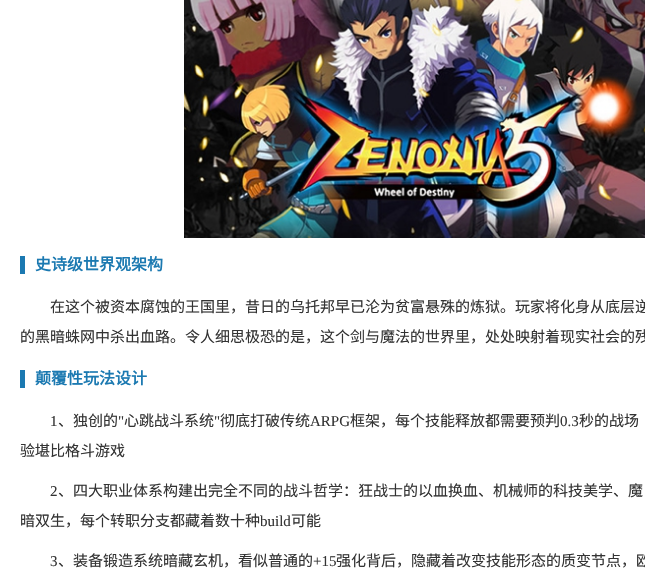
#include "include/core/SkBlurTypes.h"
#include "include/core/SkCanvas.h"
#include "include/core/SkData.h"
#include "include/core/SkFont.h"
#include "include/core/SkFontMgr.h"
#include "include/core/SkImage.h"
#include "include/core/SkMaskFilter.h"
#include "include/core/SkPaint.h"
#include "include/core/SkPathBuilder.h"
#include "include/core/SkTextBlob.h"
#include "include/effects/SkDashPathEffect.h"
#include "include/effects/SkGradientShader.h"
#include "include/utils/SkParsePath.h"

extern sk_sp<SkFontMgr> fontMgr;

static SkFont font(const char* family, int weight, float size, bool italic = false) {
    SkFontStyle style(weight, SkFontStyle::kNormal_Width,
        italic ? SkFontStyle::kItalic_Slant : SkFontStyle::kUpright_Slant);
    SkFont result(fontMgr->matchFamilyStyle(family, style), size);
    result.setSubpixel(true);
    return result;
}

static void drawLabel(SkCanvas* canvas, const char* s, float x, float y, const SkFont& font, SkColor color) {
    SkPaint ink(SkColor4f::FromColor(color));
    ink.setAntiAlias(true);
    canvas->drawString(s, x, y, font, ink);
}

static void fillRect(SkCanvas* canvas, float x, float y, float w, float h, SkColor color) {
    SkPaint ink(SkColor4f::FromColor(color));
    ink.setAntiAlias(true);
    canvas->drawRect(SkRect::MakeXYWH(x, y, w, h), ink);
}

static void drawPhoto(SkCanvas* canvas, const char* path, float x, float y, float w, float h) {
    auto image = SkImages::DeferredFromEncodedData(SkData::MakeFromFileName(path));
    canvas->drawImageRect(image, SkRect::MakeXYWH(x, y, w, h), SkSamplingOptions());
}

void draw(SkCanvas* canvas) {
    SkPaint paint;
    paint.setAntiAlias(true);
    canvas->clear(0xFFFFFFFF);
    drawPhoto(canvas, "assets/img1.png", 184, 0, 461, 238);
    fillRect(canvas, 20, 256, 5, 18, 0xFF1B79B1);
    SkFont font1 = font("Noto Sans CJK SC", 700, 16);
    drawLabel(canvas, "史诗级世界观架构", 35, 270, font1, 0xFF1B79B1);
    SkFont font2 = font("Noto Sans CJK SC", 400, 15);
    drawLabel(canvas, "在这个被资本腐蚀的王国里，昔日的乌托邦早已沦为贫富悬殊的炼狱。玩家将化身从底层逆", 50, 312, font2, 0xFF333333);
    drawLabel(canvas, "的黑暗蛛网中杀出血路。令人细思极恐的是，这个剑与魔法的世界里，处处映射着现实社会的残", 20, 342, font2, 0xFF333333);
    fillRect(canvas, 20, 370, 5, 18, 0xFF1B79B1);
    drawLabel(canvas, "颠覆性玩法设计", 35, 384, font1, 0xFF1B79B1);
    SkFont font3 = font("Liberation Serif", 400, 15);
    drawLabel(canvas, "1", 50, 426, font3, 0xFF333333);
    drawLabel(canvas, "、独创的", 58, 426, font2, 0xFF333333);
    drawLabel(canvas, "\"", 118, 426, font3, 0xFF333333);
    drawLabel(canvas, "心跳战斗系统", 124, 426, font2, 0xFF333333);
    drawLabel(canvas, "\"", 214, 426, font3, 0xFF333333);
    drawLabel(canvas, "彻底打破传统", 220, 426, font2, 0xFF333333);
    drawLabel(canvas, "ARPG", 310, 426, font3, 0xFF333333);
    drawLabel(canvas, "框架，每个技能释放都需要预判", 350, 426, font2, 0xFF333333);
    drawLabel(canvas, "0.3", 560, 426, font3, 0xFF333333);
    drawLabel(canvas, "秒的战场", 579, 426, font2, 0xFF333333);
    drawLabel(canvas, "验堪比格斗游戏", 20, 456, font2, 0xFF333333);
    drawLabel(canvas, "2", 50, 496, font3, 0xFF333333);
    drawLabel(canvas, "、四大职业体系构建出完全不同的战斗哲学：狂战士的以血换血、机械师的科技美学、魔", 58, 496, font2, 0xFF333333);
    drawLabel(canvas, "暗双生，每个转职分支都藏着数十种", 20, 526, font2, 0xFF333333);
    drawLabel(canvas, "build", 260, 526, font3, 0xFF333333);
    drawLabel(canvas, "可能", 291, 526, font2, 0xFF333333);
    drawLabel(canvas, "3", 50, 566, font3, 0xFF333333);
    drawLabel(canvas, "、装备锻造系统暗藏玄机，看似普通的", 58, 566, font2, 0xFF333333);
    drawLabel(canvas, "+15", 313, 566, font3, 0xFF333333);
    drawLabel(canvas, "强化背后，隐藏着改变技能形态的质变节点，欧", 336, 566, font2, 0xFF333333);
}
